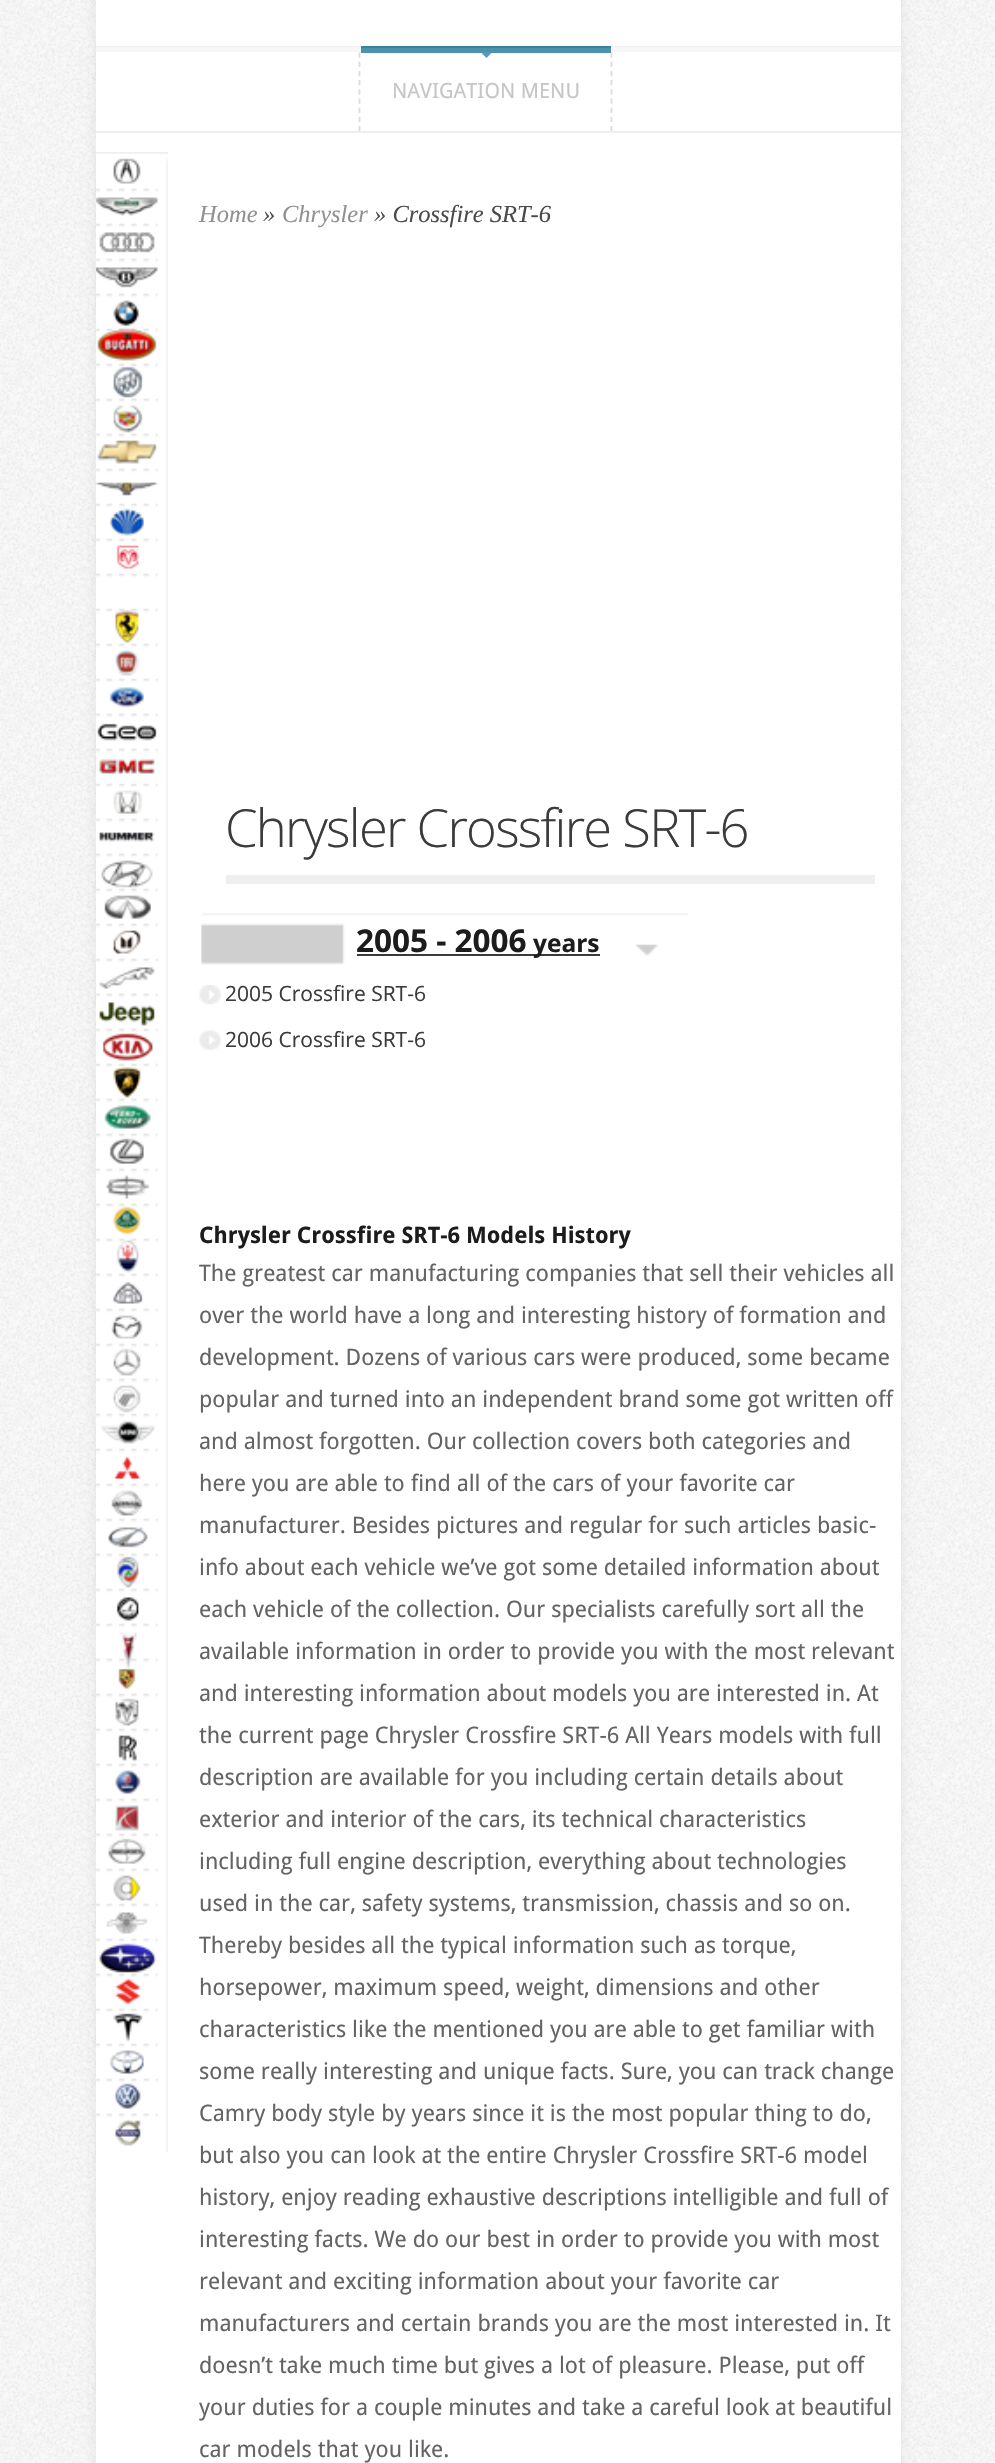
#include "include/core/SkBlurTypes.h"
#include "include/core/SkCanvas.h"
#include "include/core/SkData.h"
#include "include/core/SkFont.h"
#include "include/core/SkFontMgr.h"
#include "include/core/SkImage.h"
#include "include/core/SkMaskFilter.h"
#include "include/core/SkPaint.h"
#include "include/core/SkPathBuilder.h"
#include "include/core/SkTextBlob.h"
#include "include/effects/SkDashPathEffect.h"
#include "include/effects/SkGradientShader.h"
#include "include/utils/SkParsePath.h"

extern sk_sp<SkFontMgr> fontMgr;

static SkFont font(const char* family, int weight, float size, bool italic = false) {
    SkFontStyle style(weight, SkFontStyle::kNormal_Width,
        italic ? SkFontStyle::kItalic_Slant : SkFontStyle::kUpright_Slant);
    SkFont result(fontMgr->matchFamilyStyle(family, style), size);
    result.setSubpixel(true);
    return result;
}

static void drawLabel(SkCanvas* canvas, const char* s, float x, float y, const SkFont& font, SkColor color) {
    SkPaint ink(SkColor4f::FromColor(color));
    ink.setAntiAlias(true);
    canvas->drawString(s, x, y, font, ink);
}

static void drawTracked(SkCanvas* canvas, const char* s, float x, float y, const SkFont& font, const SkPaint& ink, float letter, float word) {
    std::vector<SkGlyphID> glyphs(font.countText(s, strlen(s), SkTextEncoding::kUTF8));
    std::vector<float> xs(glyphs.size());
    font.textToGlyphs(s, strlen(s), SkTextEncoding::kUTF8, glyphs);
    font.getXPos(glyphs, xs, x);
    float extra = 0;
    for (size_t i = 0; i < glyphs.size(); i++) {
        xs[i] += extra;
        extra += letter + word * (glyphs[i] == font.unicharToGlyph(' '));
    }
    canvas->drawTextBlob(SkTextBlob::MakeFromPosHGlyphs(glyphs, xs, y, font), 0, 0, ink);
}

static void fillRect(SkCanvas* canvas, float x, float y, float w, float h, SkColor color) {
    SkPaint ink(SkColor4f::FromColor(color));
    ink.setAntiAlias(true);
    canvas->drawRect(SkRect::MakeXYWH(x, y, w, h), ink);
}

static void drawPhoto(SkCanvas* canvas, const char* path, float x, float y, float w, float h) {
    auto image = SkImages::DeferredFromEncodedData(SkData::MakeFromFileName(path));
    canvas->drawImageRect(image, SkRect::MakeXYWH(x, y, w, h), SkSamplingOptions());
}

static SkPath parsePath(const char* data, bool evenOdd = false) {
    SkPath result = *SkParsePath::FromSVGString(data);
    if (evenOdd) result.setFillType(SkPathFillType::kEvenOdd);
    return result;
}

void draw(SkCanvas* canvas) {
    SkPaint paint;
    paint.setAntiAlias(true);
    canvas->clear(0xFFF8F8F8);
    drawPhoto(canvas, "assets/img1.png", 0, 0, 995, 2463);
    paint.setColor(0x14000000);
    paint.setMaskFilter(SkMaskFilter::MakeBlur(kNormal_SkBlurStyle, 6));
    canvas->drawRect(SkRect::MakeXYWH(96, -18, 805, 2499), paint);
    paint.setMaskFilter(nullptr);
    fillRect(canvas, 96, 0, 805, 131, 0xFFFFFFFF);
    fillRect(canvas, 96, 46, 805, 1, 0xFFEFEFEF);
    fillRect(canvas, 96, 47, 805, 5, 0xFFF7F7F7);
    fillRect(canvas, 96, 131, 805, 2, 0xFFEFEFEF);
    paint.setStroke(true);
    paint.setStrokeWidth(1.8f);
    paint.setColor(0xFFDCDCDC);
    paint.setPathEffect(SkDashPathEffect::Make({{5.25f, 3.94f}}, 0));
    canvas->drawPath(parsePath("M611.5 52.5V131"), paint);
    paint.setPathEffect(nullptr);
    paint.setPathEffect(SkDashPathEffect::Make({{5.25f, 3.94f}}, 0));
    canvas->drawPath(parsePath("M359.5 52.5V131"), paint);
    paint.setPathEffect(nullptr);
    fillRect(canvas, 361, 48, 250, 5, 0xFF4B93AD);
    fillRect(canvas, 361, 46, 250, 2, 0xFF3C819A);
    paint.setStroke(false);
    paint.setColor(0xFF549EB9);
    canvas->drawPath(parsePath("M481 52.5H492L486.5 58Z"), paint);
    SkFont font1 = font("Droid Sans", 400, 21);
    drawLabel(canvas, "NAVIGATION MENU", 392, 98, font1, 0xFFC6C6C6);
    fillRect(canvas, 96, 133, 805, 2330, 0xFFFFFFFF);
    fillRect(canvas, 96, 152, 72, 2, 0xFFEFEFEF);
    drawPhoto(canvas, "assets/img2.png", 96, 153, 72, 1999);
    SkFont font2 = font("Liberation Serif", 400, 24.5f, true);
    drawLabel(canvas, "Home", 199, 222, font2, 0xFF919191);
    drawLabel(canvas, "»", 263, 222, font2, 0xFF4A4A4A);
    drawLabel(canvas, "Chrysler", 282, 222, font2, 0xFF919191);
    drawLabel(canvas, "» Crossfire SRT-6", 374, 222, font2, 0xFF4A4A4A);
    fillRect(canvas, 226, 875, 649, 9, 0xFFEFEFEF);
    SkFont font3 = font("Open Sans", 300, 52.5f);
    paint.setColor(0xFF393C3B);
    drawTracked(canvas, "Chrysler Crossfire SRT-6", 225, 847, font3, paint, -1.75f, 0);
    drawPhoto(canvas, "assets/img3.png", 201, 913, 487, 52);
    SkFont font4 = font("Open Sans", 700, 31.5f);
    drawLabel(canvas, "2005 - 2006", 356, 952, font4, 0xFF1C1C1C);
    fillRect(canvas, 357, 954, 243, 2, 0xFF393C3B);
    SkFont font5 = font("Open Sans", 700, 24.5f);
    drawLabel(canvas, "years", 533, 952, font5, 0xFF1C1C1C);
    drawPhoto(canvas, "assets/img4.png", 199, 985, 22, 20);
    SkFont font6 = font("Open Sans", 400, 21);
    drawLabel(canvas, "2005 Crossfire SRT-6", 225, 1001, font6, 0xFF393C3B);
    drawPhoto(canvas, "assets/img5.png", 199, 1030, 22, 20);
    drawLabel(canvas, "2006 Crossfire SRT-6", 225, 1047, font6, 0xFF393C3B);
    SkFont font7 = font("Droid Sans", 700, 22.75f);
    drawLabel(canvas, "Chrysler Crossfire SRT-6 Models History", 199, 1243, font7, 0xFF1C1C1C);
    SkFont font8 = font("Droid Sans", 400, 22.75f);
    drawLabel(canvas, "The greatest car manufacturing companies that sell their vehicles all", 199, 1281, font8, 0xFF656464);
    drawLabel(canvas, "over the world have a long and interesting history of formation and", 199, 1323, font8, 0xFF656464);
    drawLabel(canvas, "development. Dozens of various cars were produced, some became", 199, 1365, font8, 0xFF656464);
    drawLabel(canvas, "popular and turned into an independent brand some got written off", 199, 1407, font8, 0xFF656464);
    drawLabel(canvas, "and almost forgotten. Our collection covers both categories and", 199, 1449, font8, 0xFF656464);
    drawLabel(canvas, "here you are able to find all of the cars of your favorite car", 199, 1491, font8, 0xFF656464);
    drawLabel(canvas, "manufacturer. Besides pictures and regular for such articles basic-", 199, 1533, font8, 0xFF656464);
    drawLabel(canvas, "info about each vehicle we’ve got some detailed information about", 199, 1575, font8, 0xFF656464);
    drawLabel(canvas, "each vehicle of the collection. Our specialists carefully sort all the", 199, 1617, font8, 0xFF656464);
    drawLabel(canvas, "available information in order to provide you with the most relevant", 199, 1659, font8, 0xFF656464);
    drawLabel(canvas, "and interesting information about models you are interested in. At", 199, 1701, font8, 0xFF656464);
    drawLabel(canvas, "the current page Chrysler Crossfire SRT-6 All Years models with full", 199, 1743, font8, 0xFF656464);
    drawLabel(canvas, "description are available for you including certain details about", 199, 1785, font8, 0xFF656464);
    drawLabel(canvas, "exterior and interior of the cars, its technical characteristics", 199, 1827, font8, 0xFF656464);
    drawLabel(canvas, "including full engine description, everything about technologies", 199, 1869, font8, 0xFF656464);
    drawLabel(canvas, "used in the car, safety systems, transmission, chassis and so on.", 199, 1911, font8, 0xFF656464);
    drawLabel(canvas, "Thereby besides all the typical information such as torque,", 199, 1953, font8, 0xFF656464);
    drawLabel(canvas, "horsepower, maximum speed, weight, dimensions and other", 199, 1995, font8, 0xFF656464);
    drawLabel(canvas, "characteristics like the mentioned you are able to get familiar with", 199, 2037, font8, 0xFF656464);
    drawLabel(canvas, "some really interesting and unique facts. Sure, you can track change", 199, 2079, font8, 0xFF656464);
    drawLabel(canvas, "Camry body style by years since it is the most popular thing to do,", 199, 2121, font8, 0xFF656464);
    drawLabel(canvas, "but also you can look at the entire Chrysler Crossfire SRT-6 model", 199, 2163, font8, 0xFF656464);
    drawLabel(canvas, "history, enjoy reading exhaustive descriptions intelligible and full of", 199, 2205, font8, 0xFF656464);
    drawLabel(canvas, "interesting facts. We do our best in order to provide you with most", 199, 2247, font8, 0xFF656464);
    drawLabel(canvas, "relevant and exciting information about your favorite car", 199, 2289, font8, 0xFF656464);
    drawLabel(canvas, "manufacturers and certain brands you are the most interested in. It", 199, 2331, font8, 0xFF656464);
    drawLabel(canvas, "doesn’t take much time but gives a lot of pleasure. Please, put off", 199, 2373, font8, 0xFF656464);
    drawLabel(canvas, "your duties for a couple minutes and take a careful look at beautiful", 199, 2415, font8, 0xFF656464);
    drawLabel(canvas, "car models that you like.", 199, 2457, font8, 0xFF656464);
}
